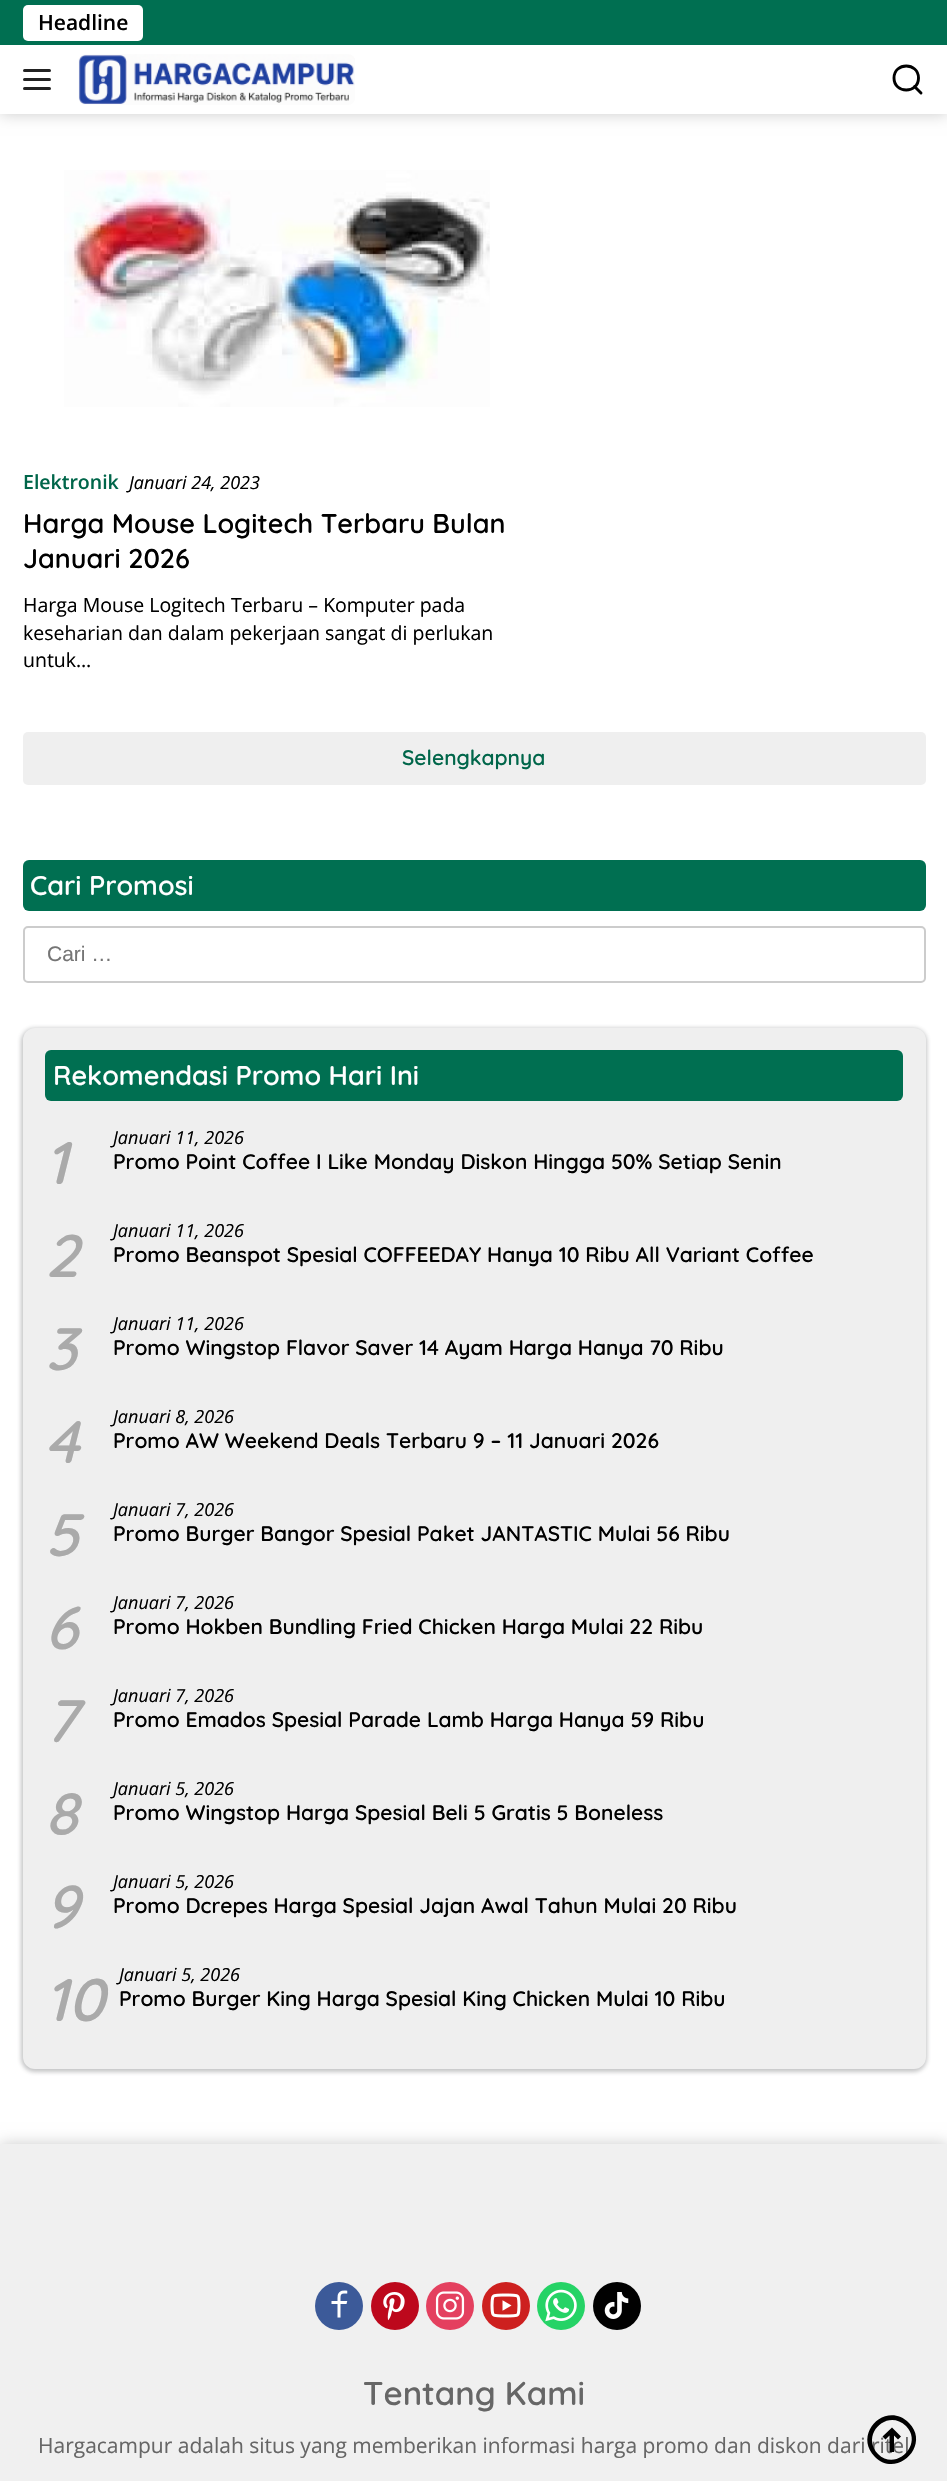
#include "include/core/SkBlurTypes.h"
#include "include/core/SkCanvas.h"
#include "include/core/SkData.h"
#include "include/core/SkFont.h"
#include "include/core/SkFontMgr.h"
#include "include/core/SkImage.h"
#include "include/core/SkMaskFilter.h"
#include "include/core/SkPaint.h"
#include "include/core/SkPathBuilder.h"
#include "include/core/SkTextBlob.h"
#include "include/effects/SkDashPathEffect.h"
#include "include/effects/SkGradientShader.h"
#include "include/utils/SkParsePath.h"

extern sk_sp<SkFontMgr> fontMgr;

static SkFont font(const char* family, int weight, float size, bool italic = false) {
    SkFontStyle style(weight, SkFontStyle::kNormal_Width,
        italic ? SkFontStyle::kItalic_Slant : SkFontStyle::kUpright_Slant);
    SkFont result(fontMgr->matchFamilyStyle(family, style), size);
    result.setSubpixel(true);
    return result;
}

static void drawLabel(SkCanvas* canvas, const char* s, float x, float y, const SkFont& font, SkColor color) {
    SkPaint ink(SkColor4f::FromColor(color));
    ink.setAntiAlias(true);
    canvas->drawString(s, x, y, font, ink);
}

static void fillRect(SkCanvas* canvas, float x, float y, float w, float h, SkColor color) {
    SkPaint ink(SkColor4f::FromColor(color));
    ink.setAntiAlias(true);
    canvas->drawRect(SkRect::MakeXYWH(x, y, w, h), ink);
}

static void fillRRect(SkCanvas* canvas, float x, float y, float w, float h, float radius, SkColor color) {
    SkPaint ink(SkColor4f::FromColor(color));
    ink.setAntiAlias(true);
    canvas->drawRoundRect(SkRect::MakeXYWH(x, y, w, h), radius, radius, ink);
}

static void drawPhoto(SkCanvas* canvas, const char* path, float x, float y, float w, float h) {
    auto image = SkImages::DeferredFromEncodedData(SkData::MakeFromFileName(path));
    canvas->drawImageRect(image, SkRect::MakeXYWH(x, y, w, h), SkSamplingOptions());
}

static SkPath parsePath(const char* data, bool evenOdd = false) {
    SkPath result = *SkParsePath::FromSVGString(data);
    if (evenOdd) result.setFillType(SkPathFillType::kEvenOdd);
    return result;
}

void draw(SkCanvas* canvas) {
    SkPaint paint;
    paint.setAntiAlias(true);
    canvas->clear(0xFFFFFFFF);
    paint.setColor(0x33000000);
    paint.setMaskFilter(SkMaskFilter::MakeBlur(kNormal_SkBlurStyle, 7.5f));
    canvas->drawRect(SkRect::MakeXYWH(0, 0, 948, 114), paint);
    paint.setMaskFilter(nullptr);
    fillRect(canvas, 0, 45, 947, 69, 0xFFFFFFFF);
    fillRect(canvas, 0, 0, 947, 45, 0xFF006F51);
    fillRRect(canvas, 23, 5, 120, 36, 5, 0xFFFFFFFF);
    SkFont font1 = font("Open Sans", 600, 21);
    drawLabel(canvas, "Headline", 38, 30, font1, 0xFF000000);
    fillRRect(canvas, 23, 69, 28, 3, 1.5f, 0xFF222222);
    fillRRect(canvas, 23, 78, 28, 3, 1.5f, 0xFF222222);
    fillRRect(canvas, 23, 87, 28, 3, 1.5f, 0xFF222222);
    drawPhoto(canvas, "assets/img1.png", 78, 54, 277, 51);
    paint.setStroke(true);
    paint.setStrokeWidth(2.9f);
    paint.setStrokeCap(SkPaint::kRound_Cap);
    paint.setColor(0xFF000000);
    canvas->drawPath(parsePath("M921 93L914.5 86.5M918.5 78C918.5 94 894 94 894 78C894 62 918.5 62 918.5 78Z"), paint);
    drawPhoto(canvas, "assets/img2.png", 64, 170, 426, 237);
    SkFont font2 = font("Open Sans", 600, 19.5f);
    drawLabel(canvas, "Elektronik", 23, 489, font2, 0xFF00664A);
    SkFont font3 = font("Open Sans", 400, 18, true);
    drawLabel(canvas, "Januari 24, 2023", 129, 489, font3, 0xFF000000);
    SkFont font4 = font("Quicksand", 600, 27);
    drawLabel(canvas, "Harga Mouse Logitech Terbaru Bulan", 23, 533, font4, 0xFF000000);
    drawLabel(canvas, "Januari 2026", 23, 568, font4, 0xFF000000);
    SkFont font5 = font("Open Sans", 400, 19.5f);
    drawLabel(canvas, "Harga Mouse Logitech Terbaru – Komputer pada", 23, 612, font5, 0xFF000000);
    drawLabel(canvas, "keseharian dan dalam pekerjaan sangat di perlukan", 23, 640, font5, 0xFF000000);
    drawLabel(canvas, "untuk…", 23, 667, font5, 0xFF000000);
    fillRRect(canvas, 23, 732, 903, 53, 5, 0xFFEFEFEF);
    SkFont font6 = font("Quicksand", 600, 21);
    drawLabel(canvas, "Selengkapnya", 402, 765, font6, 0xFF00664A);
    fillRRect(canvas, 23, 860, 903, 51, 6, 0xFF006F51);
    drawLabel(canvas, "Cari Promosi", 30, 895, font4, 0xFFFFFFFF);
    paint.setStrokeWidth(2);
    paint.setStrokeCap(SkPaint::kButt_Cap);
    paint.setColor(0xFFCCCCCC);
    canvas->drawRoundRect(SkRect::MakeXYWH(24, 927, 901, 55), 4, 4, paint);
    SkFont font7 = font("Liberation Sans", 400, 21);
    drawLabel(canvas, "Cari …", 47, 961, font7, 0xFF757575);
    paint.setStroke(false);
    paint.setColor(0x4D3C4043);
    paint.setMaskFilter(SkMaskFilter::MakeBlur(kNormal_SkBlurStyle, 2));
    canvas->drawRoundRect(SkRect::MakeXYWH(21, 1028, 906, 1044), 14, 14, paint);
    paint.setMaskFilter(nullptr);
    fillRRect(canvas, 23, 1028, 903, 1041, 12, 0xFFEFEFEF);
    fillRRect(canvas, 45, 1050, 858, 51, 6, 0xFF006F51);
    drawLabel(canvas, "Rekomendasi Promo Hari Ini", 53, 1085, font4, 0xFFFFFFFF);
    SkFont font8 = font("Quicksand", 600, 60, true);
    drawLabel(canvas, "1", 45, 1184, font8, 0xFFAAAAAA);
    drawLabel(canvas, "Januari 11, 2026", 113, 1144, font3, 0xFF000000);
    drawLabel(canvas, "Promo Point Coffee I Like Monday Diskon Hingga 50% Setiap Senin", 113, 1169, font6, 0xFF000000);
    drawLabel(canvas, "2", 45, 1277, font8, 0xFFAAAAAA);
    drawLabel(canvas, "Januari 11, 2026", 113, 1237, font3, 0xFF000000);
    drawLabel(canvas, "Promo Beanspot Spesial COFFEEDAY Hanya 10 Ribu All Variant Coffee", 113, 1262, font6, 0xFF000000);
    drawLabel(canvas, "3", 45, 1370, font8, 0xFFAAAAAA);
    drawLabel(canvas, "Januari 11, 2026", 113, 1330, font3, 0xFF000000);
    drawLabel(canvas, "Promo Wingstop Flavor Saver 14 Ayam Harga Hanya 70 Ribu", 113, 1355, font6, 0xFF000000);
    drawLabel(canvas, "4", 45, 1463, font8, 0xFFAAAAAA);
    drawLabel(canvas, "Januari 8, 2026", 113, 1423, font3, 0xFF000000);
    drawLabel(canvas, "Promo AW Weekend Deals Terbaru 9 – 11 Januari 2026", 113, 1448, font6, 0xFF000000);
    drawLabel(canvas, "5", 45, 1556, font8, 0xFFAAAAAA);
    drawLabel(canvas, "Januari 7, 2026", 113, 1516, font3, 0xFF000000);
    drawLabel(canvas, "Promo Burger Bangor Spesial Paket JANTASTIC Mulai 56 Ribu", 113, 1541, font6, 0xFF000000);
    drawLabel(canvas, "6", 45, 1649, font8, 0xFFAAAAAA);
    drawLabel(canvas, "Januari 7, 2026", 113, 1609, font3, 0xFF000000);
    drawLabel(canvas, "Promo Hokben Bundling Fried Chicken Harga Mulai 22 Ribu", 113, 1634, font6, 0xFF000000);
    drawLabel(canvas, "7", 45, 1742, font8, 0xFFAAAAAA);
    drawLabel(canvas, "Januari 7, 2026", 113, 1702, font3, 0xFF000000);
    drawLabel(canvas, "Promo Emados Spesial Parade Lamb Harga Hanya 59 Ribu", 113, 1727, font6, 0xFF000000);
    drawLabel(canvas, "8", 45, 1835, font8, 0xFFAAAAAA);
    drawLabel(canvas, "Januari 5, 2026", 113, 1795, font3, 0xFF000000);
    drawLabel(canvas, "Promo Wingstop Harga Spesial Beli 5 Gratis 5 Boneless", 113, 1820, font6, 0xFF000000);
    drawLabel(canvas, "9", 45, 1928, font8, 0xFFAAAAAA);
    drawLabel(canvas, "Januari 5, 2026", 113, 1888, font3, 0xFF000000);
    drawLabel(canvas, "Promo Dcrepes Harga Spesial Jajan Awal Tahun Mulai 20 Ribu", 113, 1913, font6, 0xFF000000);
    drawLabel(canvas, "10", 45, 2021, font8, 0xFFAAAAAA);
    drawLabel(canvas, "Januari 5, 2026", 119, 1981, font3, 0xFF000000);
    drawLabel(canvas, "Promo Burger King Harga Spesial King Chicken Mulai 10 Ribu", 119, 2006, font6, 0xFF000000);
    paint.setColor(0x33000000);
    paint.setMaskFilter(SkMaskFilter::MakeBlur(kNormal_SkBlurStyle, 7.5f));
    canvas->drawRect(SkRect::MakeXYWH(0, 2144, 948, 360), paint);
    paint.setMaskFilter(nullptr);
    fillRect(canvas, 0, 2144, 947, 337, 0xFFF0F0F0);
    paint.setColor(0xFF3C5A99);
    canvas->drawCircle(339, 2306, 24, paint);
    drawPhoto(canvas, "assets/img3.png", 331, 2290, 17, 28);
    paint.setColor(0xFFBD081C);
    canvas->drawCircle(395, 2306, 24, paint);
    drawPhoto(canvas, "assets/img4.png", 383, 2292, 22, 29);
    paint.setColor(0xFFE4405F);
    canvas->drawCircle(450, 2306, 24, paint);
    drawPhoto(canvas, "assets/img5.png", 435, 2291, 30, 29);
    paint.setColor(0xFFCD201F);
    canvas->drawCircle(506, 2306, 24, paint);
    drawPhoto(canvas, "assets/img6.png", 490, 2293, 31, 25);
    paint.setColor(0xFF25D366);
    canvas->drawCircle(561, 2306, 24, paint);
    drawPhoto(canvas, "assets/img7.png", 545, 2289, 32, 33);
    paint.setColor(0xFF010101);
    canvas->drawCircle(617, 2306, 24, paint);
    drawPhoto(canvas, "assets/img8.png", 604, 2292, 25, 27);
    SkFont font9 = font("Quicksand", 600, 33);
    drawLabel(canvas, "Tentang Kami", 363, 2405, font9, 0xFF666666);
    SkFont font10 = font("Open Sans", 400, 21);
    drawLabel(canvas, "Hargacampur adalah situs yang memberikan informasi harga promo dan diskon dari ritel", 38, 2453, font10, 0xFF666666);
    paint.setColor(0xFF000000);
    canvas->drawPath(parsePath("M898 2439.5L901 2436.5L892 2427.5L882.5 2436.5L885.5 2439.5L889.5 2435.5V2452H894V2435.5Z"), paint);
    canvas->drawPath(parsePath("M909 2423C886 2400 852 2434 875 2457C897 2479 931 2445 909 2423ZM906 2426C887 2408 860 2435 878 2454C896 2472 924 2444 906 2426Z", true), paint);
}
